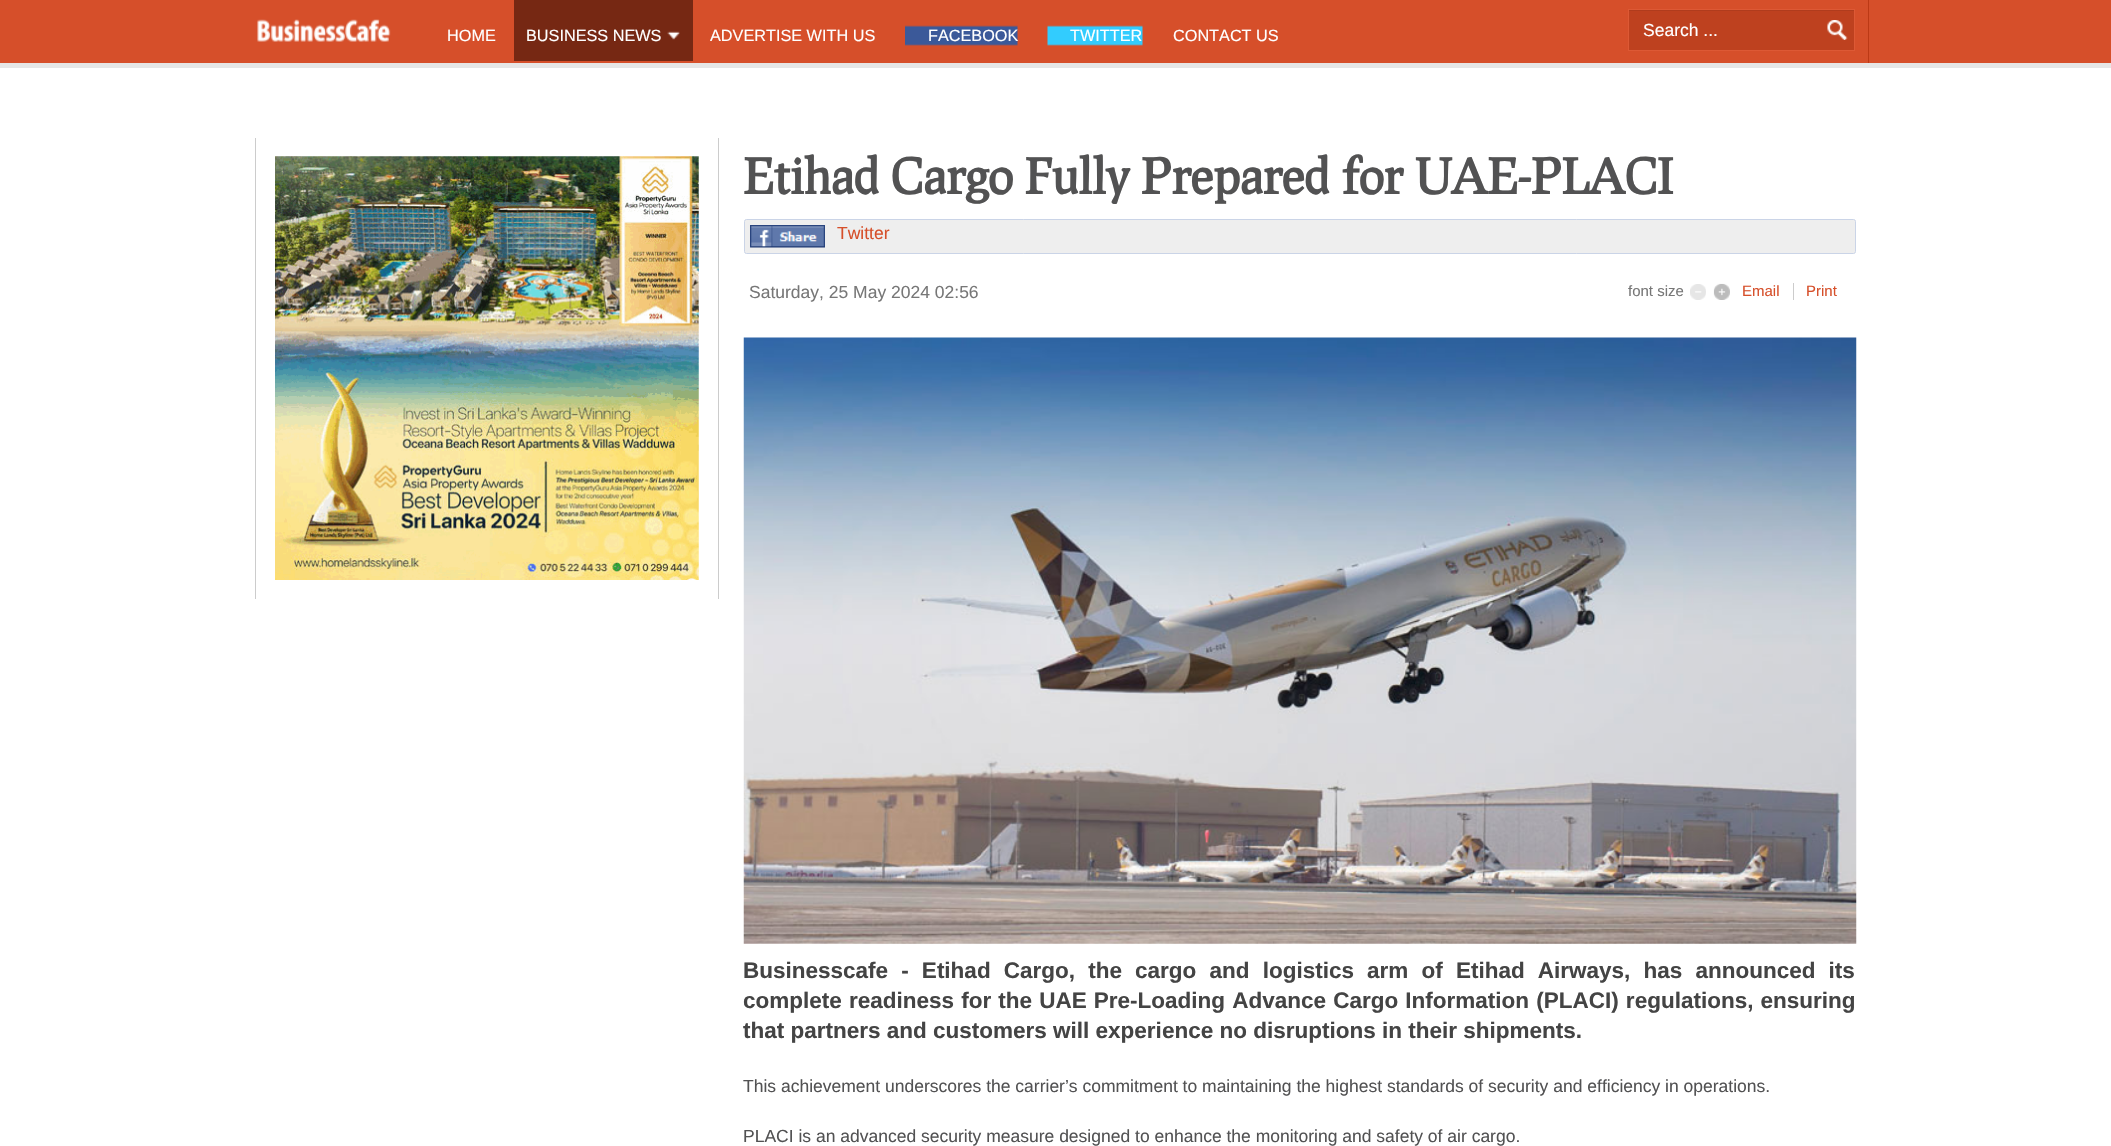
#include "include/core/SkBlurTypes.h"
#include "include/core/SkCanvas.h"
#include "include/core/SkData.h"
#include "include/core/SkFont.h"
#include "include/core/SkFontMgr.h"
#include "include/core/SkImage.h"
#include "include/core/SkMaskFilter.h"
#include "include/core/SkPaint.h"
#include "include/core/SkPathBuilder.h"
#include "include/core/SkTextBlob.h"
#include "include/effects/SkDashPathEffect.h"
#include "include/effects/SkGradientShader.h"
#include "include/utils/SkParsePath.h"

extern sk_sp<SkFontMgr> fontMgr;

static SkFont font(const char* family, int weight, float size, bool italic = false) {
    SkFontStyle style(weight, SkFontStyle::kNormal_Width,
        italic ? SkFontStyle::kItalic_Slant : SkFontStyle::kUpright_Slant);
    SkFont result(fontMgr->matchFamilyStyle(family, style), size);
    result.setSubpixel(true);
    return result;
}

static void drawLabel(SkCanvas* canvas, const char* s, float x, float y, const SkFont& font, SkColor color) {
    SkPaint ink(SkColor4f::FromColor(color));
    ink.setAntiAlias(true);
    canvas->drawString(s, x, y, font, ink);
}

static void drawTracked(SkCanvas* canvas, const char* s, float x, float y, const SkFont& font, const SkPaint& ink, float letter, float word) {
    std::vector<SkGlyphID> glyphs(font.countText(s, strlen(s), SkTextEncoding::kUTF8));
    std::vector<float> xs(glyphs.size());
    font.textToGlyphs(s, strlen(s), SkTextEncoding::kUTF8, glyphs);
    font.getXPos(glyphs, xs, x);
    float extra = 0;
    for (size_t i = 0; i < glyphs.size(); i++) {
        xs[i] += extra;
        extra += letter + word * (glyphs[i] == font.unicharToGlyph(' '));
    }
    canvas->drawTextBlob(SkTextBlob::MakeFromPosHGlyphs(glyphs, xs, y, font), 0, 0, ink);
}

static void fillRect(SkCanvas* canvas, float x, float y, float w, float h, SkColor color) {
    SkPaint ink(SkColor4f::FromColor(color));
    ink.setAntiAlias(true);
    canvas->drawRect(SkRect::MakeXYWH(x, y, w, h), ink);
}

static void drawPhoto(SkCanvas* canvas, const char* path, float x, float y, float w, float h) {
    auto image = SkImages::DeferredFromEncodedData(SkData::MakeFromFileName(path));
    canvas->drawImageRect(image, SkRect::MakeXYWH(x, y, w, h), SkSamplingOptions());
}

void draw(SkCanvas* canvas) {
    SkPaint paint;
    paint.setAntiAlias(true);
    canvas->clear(0xFFFFFFFF);
    fillRect(canvas, 0, 63, 2111, 5, 0xFFE6E6E6);
    fillRect(canvas, 0, 0, 2111, 63, 0xFFD64F2A);
    drawPhoto(canvas, "assets/img1.png", 257, 19, 134, 23);
    SkFont font1 = font("Liberation Sans", 400, 16.25f);
    drawLabel(canvas, "HOME", 447, 41, font1, 0xFFFFFFFF);
    fillRect(canvas, 514, 0, 179, 61, 0xFF762813);
    drawPhoto(canvas, "assets/img2.png", 667, 31, 13, 9);
    drawLabel(canvas, "BUSINESS NEWS", 526, 41, font1, 0xFFFFFFFF);
    drawLabel(canvas, "ADVERTISE WITH US", 710, 41, font1, 0xFFFFFFFF);
    drawPhoto(canvas, "assets/img3.png", 905, 25, 113, 21);
    drawLabel(canvas, "FACEBOOK", 928, 41, font1, 0xFFFFFFFF);
    drawPhoto(canvas, "assets/img4.png", 1047, 25, 96, 21);
    drawLabel(canvas, "TWITTER", 1070, 41, font1, 0xFFFFFFFF);
    drawLabel(canvas, "CONTACT US", 1173, 41, font1, 0xFFFFFFFF);
    fillRect(canvas, 1868, 0, 1, 63, 0xFFBC3915);
    fillRect(canvas, 1629, 11, 225, 39, 0xFFBE411F);
    drawPhoto(canvas, "assets/img5.png", 1827, 20, 21, 20);
    fillRect(canvas, 1629, 10, 225, 1, 0xFFB03C1D);
    paint.setStroke(true);
    paint.setStrokeWidth(1);
    paint.setColor(0xFFDD5935);
    canvas->drawRect(SkRect::MakeXYWH(1628.5f, 9.5f, 226, 41), paint);
    SkFont font2 = font("Liberation Sans", 400, 17.5f);
    drawLabel(canvas, "Search ...", 1643, 36, font2, 0xFFFFFFFF);
    fillRect(canvas, 718, 138, 1, 461, 0xFFCCCCCC);
    fillRect(canvas, 255, 138, 1, 461, 0xFFCCCCCC);
    drawPhoto(canvas, "assets/img6.png", 275, 156, 424, 424);
    SkFont font3 = font("Prociono", 700, 48.1f);
    drawLabel(canvas, "Etihad Cargo Fully Prepared for UAE-PLACI", 743, 194, font3, 0xFF525253);
    paint.setStroke(false);
    paint.setColor(0xFFEEEEEE);
    canvas->drawRoundRect(SkRect::MakeXYWH(744.5f, 219.5f, 1111, 34), 2, 2, paint);
    paint.setStroke(true);
    paint.setColor(0xFFCAD4E7);
    canvas->drawRoundRect(SkRect::MakeXYWH(744.5f, 219.5f, 1111, 34), 2, 2, paint);
    drawPhoto(canvas, "assets/img7.png", 750, 225, 75, 23);
    drawLabel(canvas, "Twitter", 837, 239, font2, 0xFFD64F2A);
    drawLabel(canvas, "Saturday, 25 May 2024 02:56", 749, 298, font2, 0xFF777777);
    SkFont font4 = font("Liberation Sans", 400, 15);
    drawLabel(canvas, "font size", 1628, 296, font4, 0xFF777777);
    drawPhoto(canvas, "assets/img8.png", 1690, 284, 16, 16);
    drawPhoto(canvas, "assets/img9.png", 1713, 283, 17, 17);
    drawLabel(canvas, "Email", 1742, 296, font4, 0xFFD64F2A);
    fillRect(canvas, 1793, 283, 1, 17, 0xFFCCCCCC);
    drawLabel(canvas, "Print", 1806, 296, font4, 0xFFD64F2A);
    drawPhoto(canvas, "assets/img10.png", 743, 337, 1114, 607);
    SkFont font5 = font("Liberation Sans", 700, 22.5f);
    paint.setStroke(false);
    paint.setColor(0xFF444444);
    drawTracked(canvas, "Businesscafe - Etihad Cargo, the cargo and logistics arm of Etihad Airways, has announced its", 743, 978, font5, paint, 0, 6.9f);
    drawTracked(canvas, "complete readiness for the UAE Pre-Loading Advance Cargo Information (PLACI) regulations, ensuring", 743, 1008, font5, paint, 0, 0.9f);
    drawLabel(canvas, "that partners and customers will experience no disruptions in their shipments.", 743, 1038, font5, 0xFF444444);
    drawLabel(canvas, "This achievement underscores the carrier’s commitment to maintaining the highest standards of security and efficiency in operations.", 743, 1092, font2, 0xFF525253);
    drawLabel(canvas, "PLACI is an advanced security measure designed to enhance the monitoring and safety of air cargo.", 743, 1142, font2, 0xFF525253);
}
